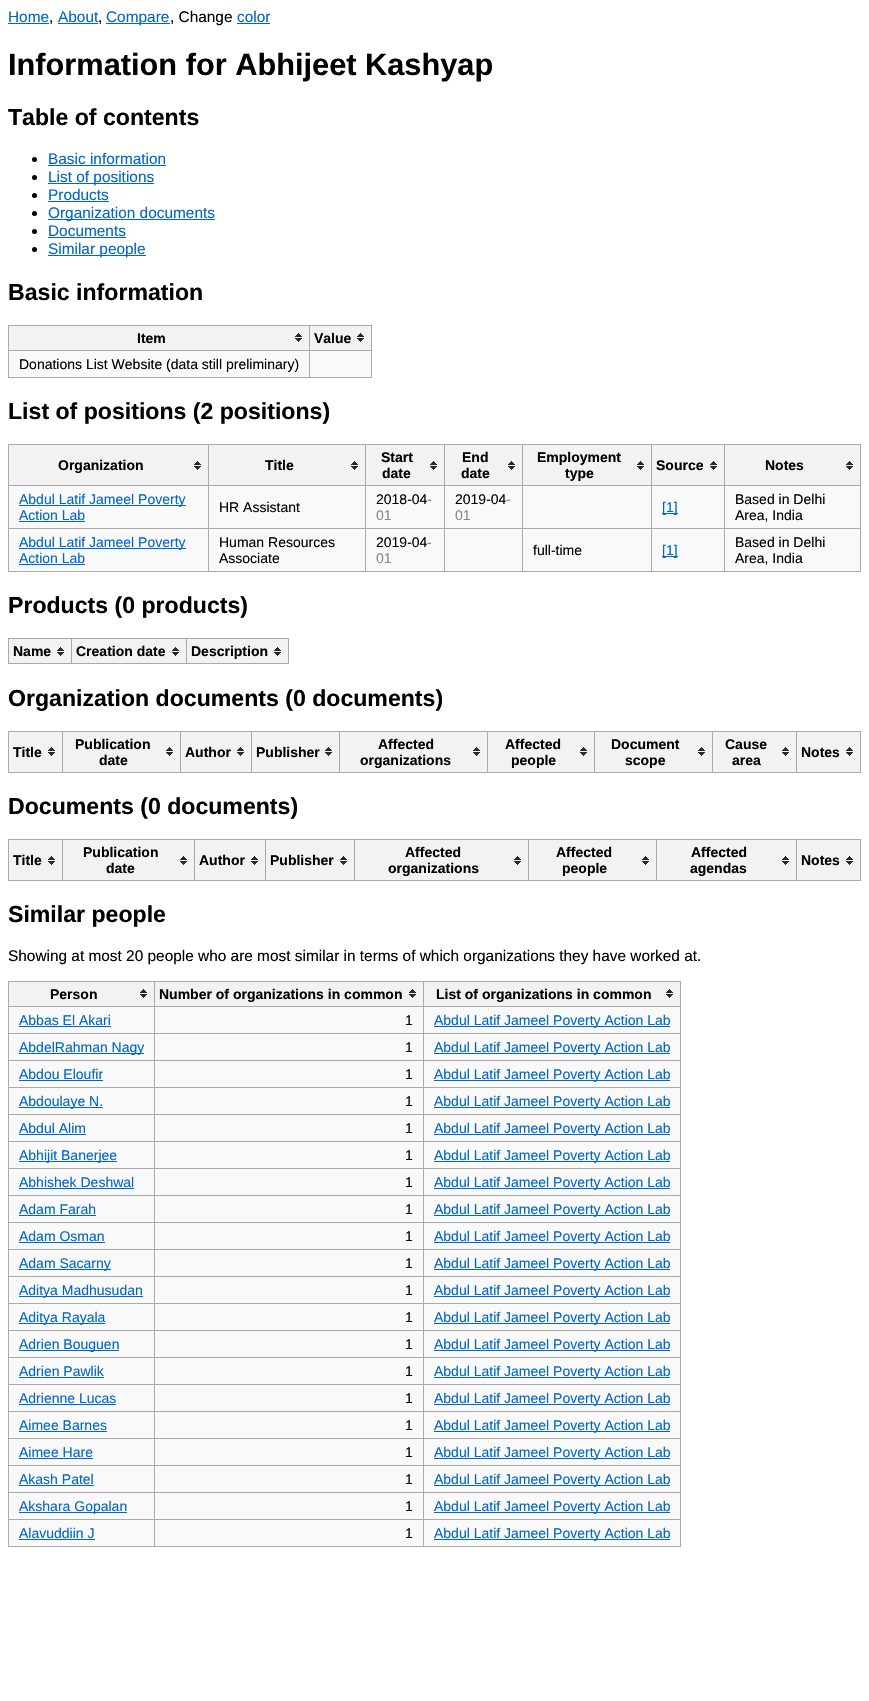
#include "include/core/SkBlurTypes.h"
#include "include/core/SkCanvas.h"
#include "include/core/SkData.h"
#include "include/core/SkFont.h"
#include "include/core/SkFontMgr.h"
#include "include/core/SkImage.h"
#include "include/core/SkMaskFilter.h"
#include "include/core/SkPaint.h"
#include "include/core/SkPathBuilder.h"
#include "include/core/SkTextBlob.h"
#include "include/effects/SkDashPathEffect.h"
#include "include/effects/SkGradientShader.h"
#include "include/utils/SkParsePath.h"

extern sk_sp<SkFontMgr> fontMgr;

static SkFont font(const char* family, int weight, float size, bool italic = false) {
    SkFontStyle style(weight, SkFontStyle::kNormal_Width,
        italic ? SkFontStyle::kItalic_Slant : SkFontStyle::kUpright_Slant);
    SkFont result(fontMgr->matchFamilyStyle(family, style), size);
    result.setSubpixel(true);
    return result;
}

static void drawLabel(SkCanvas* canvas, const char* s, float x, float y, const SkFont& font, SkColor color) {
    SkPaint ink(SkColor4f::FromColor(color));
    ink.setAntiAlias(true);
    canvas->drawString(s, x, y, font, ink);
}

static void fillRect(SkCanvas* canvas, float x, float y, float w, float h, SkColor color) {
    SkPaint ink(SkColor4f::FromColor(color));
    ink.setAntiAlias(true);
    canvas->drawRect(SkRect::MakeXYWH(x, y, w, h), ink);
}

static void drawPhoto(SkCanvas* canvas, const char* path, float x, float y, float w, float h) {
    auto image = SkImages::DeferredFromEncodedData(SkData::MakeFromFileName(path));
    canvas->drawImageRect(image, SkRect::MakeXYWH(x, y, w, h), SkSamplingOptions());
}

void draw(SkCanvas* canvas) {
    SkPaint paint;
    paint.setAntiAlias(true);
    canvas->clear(0xFFFFFFFF);
    SkFont font1 = font("Liberation Sans", 400, 15.4f);
    drawLabel(canvas, "Home", 8, 22, font1, 0xFF0066CC);
    fillRect(canvas, 8, 23, 41, 1, 0xFF0066CC);
    drawLabel(canvas, ",", 49, 22, font1, 0xFF000000);
    drawLabel(canvas, "About", 58, 22, font1, 0xFF0066CC);
    fillRect(canvas, 58, 23, 40, 1, 0xFF0066CC);
    drawLabel(canvas, ",", 98, 22, font1, 0xFF000000);
    fillRect(canvas, 106, 23, 64, 1, 0xFF0066CC);
    drawLabel(canvas, "Compare", 106, 22, font1, 0xFF0066CC);
    drawLabel(canvas, ", Change", 170, 22, font1, 0xFF000000);
    drawLabel(canvas, "color", 237, 22, font1, 0xFF0066CC);
    fillRect(canvas, 237, 23, 33, 1, 0xFF0066CC);
    SkFont font2 = font("Liberation Sans", 700, 30.75f);
    drawLabel(canvas, "Information for Abhijeet Kashyap", 8, 75, font2, 0xFF000000);
    SkFont font3 = font("Liberation Sans", 700, 23.1f);
    drawLabel(canvas, "Table of contents", 8, 125, font3, 0xFF000000);
    paint.setColor(0xFF000000);
    canvas->drawCircle(34.5f, 159.5f, 2.5f, paint);
    drawLabel(canvas, "Basic information", 48, 164, font1, 0xFF0066CC);
    fillRect(canvas, 48, 165, 118, 1, 0xFF0066CC);
    canvas->drawCircle(34.5f, 177.5f, 2.5f, paint);
    fillRect(canvas, 48, 183, 106, 1, 0xFF0066CC);
    drawLabel(canvas, "List of positions", 48, 182, font1, 0xFF0066CC);
    canvas->drawCircle(34.5f, 195.5f, 2.5f, paint);
    drawLabel(canvas, "Products", 48, 200, font1, 0xFF0066CC);
    fillRect(canvas, 48, 201, 61, 1, 0xFF0066CC);
    canvas->drawCircle(34.5f, 213.5f, 2.5f, paint);
    fillRect(canvas, 48, 219, 167, 1, 0xFF0066CC);
    drawLabel(canvas, "Organization documents", 48, 218, font1, 0xFF0066CC);
    canvas->drawCircle(34.5f, 231.5f, 2.5f, paint);
    drawLabel(canvas, "Documents", 48, 236, font1, 0xFF0066CC);
    fillRect(canvas, 48, 237, 78, 1, 0xFF0066CC);
    canvas->drawCircle(34.5f, 249.5f, 2.5f, paint);
    fillRect(canvas, 48, 255, 98, 1, 0xFF0066CC);
    drawLabel(canvas, "Similar people", 48, 254, font1, 0xFF0066CC);
    drawLabel(canvas, "Basic information", 8, 300, font3, 0xFF000000);
    fillRect(canvas, 9, 351, 362, 26, 0xFFF9F9F9);
    fillRect(canvas, 9, 326, 300, 24, 0xFFF2F2F2);
    drawPhoto(canvas, "assets/img1.png", 295, 333, 7, 9);
    fillRect(canvas, 309, 325, 63, 1, 0xFFAAAAAA);
    fillRect(canvas, 309, 350, 63, 1, 0xFFAAAAAA);
    fillRect(canvas, 371, 350, 1, 28, 0xFFAAAAAA);
    fillRect(canvas, 309, 377, 63, 1, 0xFFAAAAAA);
    fillRect(canvas, 309, 350, 1, 28, 0xFFAAAAAA);
    fillRect(canvas, 8, 350, 302, 1, 0xFFAAAAAA);
    fillRect(canvas, 309, 325, 1, 26, 0xFFAAAAAA);
    fillRect(canvas, 8, 325, 302, 1, 0xFFAAAAAA);
    fillRect(canvas, 8, 377, 302, 1, 0xFFAAAAAA);
    fillRect(canvas, 8, 350, 1, 28, 0xFFAAAAAA);
    fillRect(canvas, 8, 325, 1, 26, 0xFFAAAAAA);
    SkFont font4 = font("Liberation Sans", 700, 14);
    drawLabel(canvas, "Item", 137, 343, font4, 0xFF000000);
    fillRect(canvas, 310, 326, 61, 24, 0xFFF2F2F2);
    drawPhoto(canvas, "assets/img1.png", 357, 333, 7, 9);
    fillRect(canvas, 371, 325, 1, 26, 0xFFAAAAAA);
    drawLabel(canvas, "Value", 314, 343, font4, 0xFF000000);
    SkFont font5 = font("Liberation Sans", 400, 14);
    drawLabel(canvas, "Donations List Website (data still preliminary)", 19, 369, font5, 0xFF000000);
    drawLabel(canvas, "List of positions (2 positions)", 8, 419, font3, 0xFF000000);
    fillRect(canvas, 9, 486, 851, 85, 0xFFF9F9F9);
    fillRect(canvas, 9, 445, 199, 40, 0xFFF2F2F2);
    drawPhoto(canvas, "assets/img1.png", 194, 461, 7, 9);
    fillRect(canvas, 724, 444, 137, 1, 0xFFAAAAAA);
    fillRect(canvas, 724, 485, 137, 1, 0xFFAAAAAA);
    fillRect(canvas, 724, 528, 137, 1, 0xFFAAAAAA);
    fillRect(canvas, 860, 528, 1, 44, 0xFFAAAAAA);
    fillRect(canvas, 724, 571, 137, 1, 0xFFAAAAAA);
    fillRect(canvas, 724, 528, 1, 44, 0xFFAAAAAA);
    fillRect(canvas, 651, 528, 74, 1, 0xFFAAAAAA);
    fillRect(canvas, 724, 485, 1, 44, 0xFFAAAAAA);
    fillRect(canvas, 651, 485, 74, 1, 0xFFAAAAAA);
    fillRect(canvas, 724, 444, 1, 42, 0xFFAAAAAA);
    fillRect(canvas, 651, 444, 74, 1, 0xFFAAAAAA);
    fillRect(canvas, 651, 571, 74, 1, 0xFFAAAAAA);
    fillRect(canvas, 651, 528, 1, 44, 0xFFAAAAAA);
    fillRect(canvas, 522, 528, 130, 1, 0xFFAAAAAA);
    fillRect(canvas, 651, 485, 1, 44, 0xFFAAAAAA);
    fillRect(canvas, 522, 485, 130, 1, 0xFFAAAAAA);
    fillRect(canvas, 651, 444, 1, 42, 0xFFAAAAAA);
    fillRect(canvas, 522, 444, 130, 1, 0xFFAAAAAA);
    fillRect(canvas, 522, 571, 130, 1, 0xFFAAAAAA);
    fillRect(canvas, 522, 528, 1, 44, 0xFFAAAAAA);
    fillRect(canvas, 444, 528, 79, 1, 0xFFAAAAAA);
    fillRect(canvas, 522, 485, 1, 44, 0xFFAAAAAA);
    fillRect(canvas, 444, 485, 79, 1, 0xFFAAAAAA);
    fillRect(canvas, 522, 444, 1, 42, 0xFFAAAAAA);
    fillRect(canvas, 444, 444, 79, 1, 0xFFAAAAAA);
    fillRect(canvas, 444, 571, 79, 1, 0xFFAAAAAA);
    fillRect(canvas, 444, 528, 1, 44, 0xFFAAAAAA);
    fillRect(canvas, 365, 528, 80, 1, 0xFFAAAAAA);
    fillRect(canvas, 444, 485, 1, 44, 0xFFAAAAAA);
    fillRect(canvas, 365, 485, 80, 1, 0xFFAAAAAA);
    fillRect(canvas, 444, 444, 1, 42, 0xFFAAAAAA);
    fillRect(canvas, 365, 444, 80, 1, 0xFFAAAAAA);
    fillRect(canvas, 365, 571, 80, 1, 0xFFAAAAAA);
    fillRect(canvas, 365, 528, 1, 44, 0xFFAAAAAA);
    fillRect(canvas, 208, 528, 158, 1, 0xFFAAAAAA);
    fillRect(canvas, 365, 485, 1, 44, 0xFFAAAAAA);
    fillRect(canvas, 208, 485, 158, 1, 0xFFAAAAAA);
    fillRect(canvas, 365, 444, 1, 42, 0xFFAAAAAA);
    fillRect(canvas, 208, 444, 158, 1, 0xFFAAAAAA);
    fillRect(canvas, 208, 571, 158, 1, 0xFFAAAAAA);
    fillRect(canvas, 208, 528, 1, 44, 0xFFAAAAAA);
    fillRect(canvas, 8, 528, 201, 1, 0xFFAAAAAA);
    fillRect(canvas, 208, 485, 1, 44, 0xFFAAAAAA);
    fillRect(canvas, 8, 485, 201, 1, 0xFFAAAAAA);
    fillRect(canvas, 208, 444, 1, 42, 0xFFAAAAAA);
    fillRect(canvas, 8, 444, 201, 1, 0xFFAAAAAA);
    fillRect(canvas, 8, 571, 201, 1, 0xFFAAAAAA);
    fillRect(canvas, 8, 528, 1, 44, 0xFFAAAAAA);
    fillRect(canvas, 8, 485, 1, 44, 0xFFAAAAAA);
    fillRect(canvas, 8, 444, 1, 42, 0xFFAAAAAA);
    drawLabel(canvas, "Organization", 58, 470, font4, 0xFF000000);
    fillRect(canvas, 209, 445, 156, 40, 0xFFF2F2F2);
    drawPhoto(canvas, "assets/img1.png", 351, 461, 7, 9);
    drawLabel(canvas, "Title", 265, 470, font4, 0xFF000000);
    fillRect(canvas, 366, 445, 78, 40, 0xFFF2F2F2);
    drawPhoto(canvas, "assets/img1.png", 430, 461, 7, 9);
    drawLabel(canvas, "Start", 381, 462, font4, 0xFF000000);
    drawLabel(canvas, "date", 382, 478, font4, 0xFF000000);
    fillRect(canvas, 445, 445, 77, 40, 0xFFF2F2F2);
    drawPhoto(canvas, "assets/img1.png", 508, 461, 7, 9);
    drawLabel(canvas, "End", 462, 462, font4, 0xFF000000);
    drawLabel(canvas, "date", 461, 478, font4, 0xFF000000);
    fillRect(canvas, 523, 445, 128, 40, 0xFFF2F2F2);
    drawPhoto(canvas, "assets/img1.png", 637, 461, 7, 9);
    drawLabel(canvas, "Employment", 537, 462, font4, 0xFF000000);
    drawLabel(canvas, "type", 565, 478, font4, 0xFF000000);
    fillRect(canvas, 652, 445, 72, 40, 0xFFF2F2F2);
    drawPhoto(canvas, "assets/img1.png", 710, 461, 7, 9);
    drawLabel(canvas, "Source", 656, 470, font4, 0xFF000000);
    fillRect(canvas, 725, 445, 135, 40, 0xFFF2F2F2);
    drawPhoto(canvas, "assets/img1.png", 846, 461, 7, 9);
    fillRect(canvas, 860, 485, 1, 44, 0xFFAAAAAA);
    fillRect(canvas, 860, 444, 1, 42, 0xFFAAAAAA);
    drawLabel(canvas, "Notes", 765, 470, font4, 0xFF000000);
    fillRect(canvas, 19, 505, 167, 1, 0xFF0066CC);
    drawLabel(canvas, "Abdul Latif Jameel Poverty", 19, 504, font5, 0xFF0066CC);
    drawLabel(canvas, "Action Lab", 19, 520, font5, 0xFF0066CC);
    fillRect(canvas, 19, 521, 66, 1, 0xFF0066CC);
    drawLabel(canvas, "HR Assistant", 219, 512, font5, 0xFF000000);
    drawLabel(canvas, "2018-04", 376, 504, font5, 0xFF000000);
    drawLabel(canvas, "-", 427, 504, font5, 0xFF888888);
    drawLabel(canvas, "01", 376, 520, font5, 0xFF888888);
    drawLabel(canvas, "2019-04", 455, 504, font5, 0xFF000000);
    drawLabel(canvas, "-", 506, 504, font5, 0xFF888888);
    drawLabel(canvas, "01", 455, 520, font5, 0xFF888888);
    fillRect(canvas, 662, 513, 16, 1, 0xFF0066CC);
    drawLabel(canvas, "[1]", 662, 512, font5, 0xFF0066CC);
    drawLabel(canvas, "Based in Delhi", 735, 504, font5, 0xFF000000);
    drawLabel(canvas, "Area, India", 735, 520, font5, 0xFF000000);
    fillRect(canvas, 19, 548, 167, 1, 0xFF0066CC);
    drawLabel(canvas, "Abdul Latif Jameel Poverty", 19, 547, font5, 0xFF0066CC);
    drawLabel(canvas, "Action Lab", 19, 563, font5, 0xFF0066CC);
    fillRect(canvas, 19, 564, 66, 1, 0xFF0066CC);
    drawLabel(canvas, "Human Resources", 219, 547, font5, 0xFF000000);
    drawLabel(canvas, "Associate", 219, 563, font5, 0xFF000000);
    drawLabel(canvas, "2019-04", 376, 547, font5, 0xFF000000);
    drawLabel(canvas, "-", 427, 547, font5, 0xFF888888);
    drawLabel(canvas, "01", 376, 563, font5, 0xFF888888);
    drawLabel(canvas, "full-time", 533, 555, font5, 0xFF000000);
    fillRect(canvas, 662, 556, 16, 1, 0xFF0066CC);
    drawLabel(canvas, "[1]", 662, 555, font5, 0xFF0066CC);
    drawLabel(canvas, "Based in Delhi", 735, 547, font5, 0xFF000000);
    drawLabel(canvas, "Area, India", 735, 563, font5, 0xFF000000);
    drawLabel(canvas, "Products (0 products)", 8, 613, font3, 0xFF000000);
    fillRect(canvas, 9, 639, 62, 24, 0xFFF2F2F2);
    drawPhoto(canvas, "assets/img1.png", 57, 647, 7, 9);
    fillRect(canvas, 186, 638, 103, 1, 0xFFAAAAAA);
    fillRect(canvas, 288, 638, 1, 26, 0xFFAAAAAA);
    fillRect(canvas, 186, 663, 103, 1, 0xFFAAAAAA);
    fillRect(canvas, 186, 638, 1, 26, 0xFFAAAAAA);
    fillRect(canvas, 71, 638, 116, 1, 0xFFAAAAAA);
    fillRect(canvas, 71, 663, 116, 1, 0xFFAAAAAA);
    fillRect(canvas, 71, 638, 1, 26, 0xFFAAAAAA);
    fillRect(canvas, 8, 638, 64, 1, 0xFFAAAAAA);
    fillRect(canvas, 8, 663, 64, 1, 0xFFAAAAAA);
    fillRect(canvas, 8, 638, 1, 26, 0xFFAAAAAA);
    drawLabel(canvas, "Name", 13, 656, font4, 0xFF000000);
    fillRect(canvas, 72, 639, 114, 24, 0xFFF2F2F2);
    drawPhoto(canvas, "assets/img1.png", 172, 647, 7, 9);
    drawLabel(canvas, "Creation date", 76, 656, font4, 0xFF000000);
    fillRect(canvas, 187, 639, 101, 24, 0xFFF2F2F2);
    drawPhoto(canvas, "assets/img1.png", 274, 647, 7, 9);
    drawLabel(canvas, "Description", 191, 656, font4, 0xFF000000);
    drawLabel(canvas, "Organization documents (0 documents)", 8, 706, font3, 0xFF000000);
    fillRect(canvas, 9, 732, 53, 40, 0xFFF2F2F2);
    drawPhoto(canvas, "assets/img1.png", 48, 747, 7, 9);
    fillRect(canvas, 796, 731, 65, 1, 0xFFAAAAAA);
    fillRect(canvas, 860, 731, 1, 42, 0xFFAAAAAA);
    fillRect(canvas, 796, 772, 65, 1, 0xFFAAAAAA);
    fillRect(canvas, 796, 731, 1, 42, 0xFFAAAAAA);
    fillRect(canvas, 712, 731, 85, 1, 0xFFAAAAAA);
    fillRect(canvas, 712, 772, 85, 1, 0xFFAAAAAA);
    fillRect(canvas, 712, 731, 1, 42, 0xFFAAAAAA);
    fillRect(canvas, 594, 731, 119, 1, 0xFFAAAAAA);
    fillRect(canvas, 594, 772, 119, 1, 0xFFAAAAAA);
    fillRect(canvas, 594, 731, 1, 42, 0xFFAAAAAA);
    fillRect(canvas, 487, 731, 108, 1, 0xFFAAAAAA);
    fillRect(canvas, 487, 772, 108, 1, 0xFFAAAAAA);
    fillRect(canvas, 487, 731, 1, 42, 0xFFAAAAAA);
    fillRect(canvas, 339, 731, 149, 1, 0xFFAAAAAA);
    fillRect(canvas, 339, 772, 149, 1, 0xFFAAAAAA);
    fillRect(canvas, 339, 731, 1, 42, 0xFFAAAAAA);
    fillRect(canvas, 251, 731, 89, 1, 0xFFAAAAAA);
    fillRect(canvas, 251, 772, 89, 1, 0xFFAAAAAA);
    fillRect(canvas, 251, 731, 1, 42, 0xFFAAAAAA);
    fillRect(canvas, 180, 731, 72, 1, 0xFFAAAAAA);
    fillRect(canvas, 180, 772, 72, 1, 0xFFAAAAAA);
    fillRect(canvas, 180, 731, 1, 42, 0xFFAAAAAA);
    fillRect(canvas, 62, 731, 119, 1, 0xFFAAAAAA);
    fillRect(canvas, 62, 772, 119, 1, 0xFFAAAAAA);
    fillRect(canvas, 62, 731, 1, 42, 0xFFAAAAAA);
    fillRect(canvas, 8, 731, 55, 1, 0xFFAAAAAA);
    fillRect(canvas, 8, 772, 55, 1, 0xFFAAAAAA);
    fillRect(canvas, 8, 731, 1, 42, 0xFFAAAAAA);
    drawLabel(canvas, "Title", 13, 757, font4, 0xFF000000);
    fillRect(canvas, 63, 732, 117, 40, 0xFFF2F2F2);
    drawPhoto(canvas, "assets/img1.png", 166, 747, 7, 9);
    drawLabel(canvas, "Publication", 75, 749, font4, 0xFF000000);
    drawLabel(canvas, "date", 99, 765, font4, 0xFF000000);
    fillRect(canvas, 181, 732, 70, 40, 0xFFF2F2F2);
    drawPhoto(canvas, "assets/img1.png", 237, 747, 7, 9);
    drawLabel(canvas, "Author", 185, 757, font4, 0xFF000000);
    fillRect(canvas, 252, 732, 87, 40, 0xFFF2F2F2);
    drawPhoto(canvas, "assets/img1.png", 325, 747, 7, 9);
    drawLabel(canvas, "Publisher", 256, 757, font4, 0xFF000000);
    fillRect(canvas, 340, 732, 147, 40, 0xFFF2F2F2);
    drawPhoto(canvas, "assets/img1.png", 473, 747, 7, 9);
    drawLabel(canvas, "Affected", 378, 749, font4, 0xFF000000);
    drawLabel(canvas, "organizations", 360, 765, font4, 0xFF000000);
    fillRect(canvas, 488, 732, 106, 40, 0xFFF2F2F2);
    drawPhoto(canvas, "assets/img1.png", 580, 747, 7, 9);
    drawLabel(canvas, "Affected", 505, 749, font4, 0xFF000000);
    drawLabel(canvas, "people", 511, 765, font4, 0xFF000000);
    fillRect(canvas, 595, 732, 117, 40, 0xFFF2F2F2);
    drawPhoto(canvas, "assets/img1.png", 698, 747, 7, 9);
    drawLabel(canvas, "Document", 611, 749, font4, 0xFF000000);
    drawLabel(canvas, "scope", 625, 765, font4, 0xFF000000);
    fillRect(canvas, 713, 732, 83, 40, 0xFFF2F2F2);
    drawPhoto(canvas, "assets/img1.png", 782, 747, 7, 9);
    drawLabel(canvas, "Cause", 725, 749, font4, 0xFF000000);
    drawLabel(canvas, "area", 732, 765, font4, 0xFF000000);
    fillRect(canvas, 797, 732, 63, 40, 0xFFF2F2F2);
    drawPhoto(canvas, "assets/img1.png", 846, 747, 7, 9);
    drawLabel(canvas, "Notes", 801, 757, font4, 0xFF000000);
    drawLabel(canvas, "Documents (0 documents)", 8, 814, font3, 0xFF000000);
    fillRect(canvas, 9, 840, 53, 40, 0xFFF2F2F2);
    drawPhoto(canvas, "assets/img1.png", 48, 856, 7, 9);
    fillRect(canvas, 796, 839, 65, 1, 0xFFAAAAAA);
    fillRect(canvas, 860, 839, 1, 42, 0xFFAAAAAA);
    fillRect(canvas, 796, 880, 65, 1, 0xFFAAAAAA);
    fillRect(canvas, 796, 839, 1, 42, 0xFFAAAAAA);
    fillRect(canvas, 656, 839, 141, 1, 0xFFAAAAAA);
    fillRect(canvas, 656, 880, 141, 1, 0xFFAAAAAA);
    fillRect(canvas, 656, 839, 1, 42, 0xFFAAAAAA);
    fillRect(canvas, 528, 839, 129, 1, 0xFFAAAAAA);
    fillRect(canvas, 528, 880, 129, 1, 0xFFAAAAAA);
    fillRect(canvas, 528, 839, 1, 42, 0xFFAAAAAA);
    fillRect(canvas, 354, 839, 175, 1, 0xFFAAAAAA);
    fillRect(canvas, 354, 880, 175, 1, 0xFFAAAAAA);
    fillRect(canvas, 354, 839, 1, 42, 0xFFAAAAAA);
    fillRect(canvas, 265, 839, 90, 1, 0xFFAAAAAA);
    fillRect(canvas, 265, 880, 90, 1, 0xFFAAAAAA);
    fillRect(canvas, 265, 839, 1, 42, 0xFFAAAAAA);
    fillRect(canvas, 194, 839, 72, 1, 0xFFAAAAAA);
    fillRect(canvas, 194, 880, 72, 1, 0xFFAAAAAA);
    fillRect(canvas, 194, 839, 1, 42, 0xFFAAAAAA);
    fillRect(canvas, 62, 839, 133, 1, 0xFFAAAAAA);
    fillRect(canvas, 62, 880, 133, 1, 0xFFAAAAAA);
    fillRect(canvas, 62, 839, 1, 42, 0xFFAAAAAA);
    fillRect(canvas, 8, 839, 55, 1, 0xFFAAAAAA);
    fillRect(canvas, 8, 880, 55, 1, 0xFFAAAAAA);
    fillRect(canvas, 8, 839, 1, 42, 0xFFAAAAAA);
    drawLabel(canvas, "Title", 13, 865, font4, 0xFF000000);
    fillRect(canvas, 63, 840, 131, 40, 0xFFF2F2F2);
    drawPhoto(canvas, "assets/img1.png", 180, 856, 7, 9);
    drawLabel(canvas, "Publication", 83, 857, font4, 0xFF000000);
    drawLabel(canvas, "date", 106, 873, font4, 0xFF000000);
    fillRect(canvas, 195, 840, 70, 40, 0xFFF2F2F2);
    drawPhoto(canvas, "assets/img1.png", 251, 856, 7, 9);
    drawLabel(canvas, "Author", 199, 865, font4, 0xFF000000);
    fillRect(canvas, 266, 840, 88, 40, 0xFFF2F2F2);
    drawPhoto(canvas, "assets/img1.png", 340, 856, 7, 9);
    drawLabel(canvas, "Publisher", 270, 865, font4, 0xFF000000);
    fillRect(canvas, 355, 840, 173, 40, 0xFFF2F2F2);
    drawPhoto(canvas, "assets/img1.png", 514, 856, 7, 9);
    drawLabel(canvas, "Affected", 405, 857, font4, 0xFF000000);
    drawLabel(canvas, "organizations", 388, 873, font4, 0xFF000000);
    fillRect(canvas, 529, 840, 127, 40, 0xFFF2F2F2);
    drawPhoto(canvas, "assets/img1.png", 642, 856, 7, 9);
    drawLabel(canvas, "Affected", 556, 857, font4, 0xFF000000);
    drawLabel(canvas, "people", 562, 873, font4, 0xFF000000);
    fillRect(canvas, 657, 840, 139, 40, 0xFFF2F2F2);
    drawPhoto(canvas, "assets/img1.png", 782, 856, 7, 9);
    drawLabel(canvas, "Affected", 691, 857, font4, 0xFF000000);
    drawLabel(canvas, "agendas", 690, 873, font4, 0xFF000000);
    fillRect(canvas, 797, 840, 63, 40, 0xFFF2F2F2);
    drawPhoto(canvas, "assets/img1.png", 846, 856, 7, 9);
    drawLabel(canvas, "Notes", 801, 865, font4, 0xFF000000);
    drawLabel(canvas, "Similar people", 8, 922, font3, 0xFF000000);
    drawLabel(canvas, "Showing at most 20 people who are most similar in terms of which organizations they have worked at.", 8, 961, font1, 0xFF000000);
    fillRect(canvas, 9, 1007, 671, 539, 0xFFF9F9F9);
    fillRect(canvas, 9, 982, 145, 24, 0xFFF2F2F2);
    drawPhoto(canvas, "assets/img1.png", 140, 989, 7, 9);
    fillRect(canvas, 423, 981, 258, 1, 0xFFAAAAAA);
    fillRect(canvas, 423, 1006, 258, 1, 0xFFAAAAAA);
    fillRect(canvas, 423, 1033, 258, 1, 0xFFAAAAAA);
    fillRect(canvas, 423, 1060, 258, 1, 0xFFAAAAAA);
    fillRect(canvas, 423, 1087, 258, 1, 0xFFAAAAAA);
    fillRect(canvas, 423, 1114, 258, 1, 0xFFAAAAAA);
    fillRect(canvas, 423, 1141, 258, 1, 0xFFAAAAAA);
    fillRect(canvas, 423, 1168, 258, 1, 0xFFAAAAAA);
    fillRect(canvas, 423, 1195, 258, 1, 0xFFAAAAAA);
    fillRect(canvas, 423, 1222, 258, 1, 0xFFAAAAAA);
    fillRect(canvas, 423, 1249, 258, 1, 0xFFAAAAAA);
    fillRect(canvas, 423, 1276, 258, 1, 0xFFAAAAAA);
    fillRect(canvas, 423, 1303, 258, 1, 0xFFAAAAAA);
    fillRect(canvas, 423, 1330, 258, 1, 0xFFAAAAAA);
    fillRect(canvas, 423, 1357, 258, 1, 0xFFAAAAAA);
    fillRect(canvas, 423, 1384, 258, 1, 0xFFAAAAAA);
    fillRect(canvas, 423, 1411, 258, 1, 0xFFAAAAAA);
    fillRect(canvas, 423, 1438, 258, 1, 0xFFAAAAAA);
    fillRect(canvas, 423, 1465, 258, 1, 0xFFAAAAAA);
    fillRect(canvas, 423, 1492, 258, 1, 0xFFAAAAAA);
    fillRect(canvas, 423, 1519, 258, 1, 0xFFAAAAAA);
    fillRect(canvas, 680, 1519, 1, 28, 0xFFAAAAAA);
    fillRect(canvas, 423, 1546, 258, 1, 0xFFAAAAAA);
    fillRect(canvas, 423, 1519, 1, 28, 0xFFAAAAAA);
    fillRect(canvas, 154, 1519, 270, 1, 0xFFAAAAAA);
    fillRect(canvas, 423, 1492, 1, 28, 0xFFAAAAAA);
    fillRect(canvas, 154, 1492, 270, 1, 0xFFAAAAAA);
    fillRect(canvas, 423, 1465, 1, 28, 0xFFAAAAAA);
    fillRect(canvas, 154, 1465, 270, 1, 0xFFAAAAAA);
    fillRect(canvas, 423, 1438, 1, 28, 0xFFAAAAAA);
    fillRect(canvas, 154, 1438, 270, 1, 0xFFAAAAAA);
    fillRect(canvas, 423, 1411, 1, 28, 0xFFAAAAAA);
    fillRect(canvas, 154, 1411, 270, 1, 0xFFAAAAAA);
    fillRect(canvas, 423, 1384, 1, 28, 0xFFAAAAAA);
    fillRect(canvas, 154, 1384, 270, 1, 0xFFAAAAAA);
    fillRect(canvas, 423, 1357, 1, 28, 0xFFAAAAAA);
    fillRect(canvas, 154, 1357, 270, 1, 0xFFAAAAAA);
    fillRect(canvas, 423, 1330, 1, 28, 0xFFAAAAAA);
    fillRect(canvas, 154, 1330, 270, 1, 0xFFAAAAAA);
    fillRect(canvas, 423, 1303, 1, 28, 0xFFAAAAAA);
    fillRect(canvas, 154, 1303, 270, 1, 0xFFAAAAAA);
    fillRect(canvas, 423, 1276, 1, 28, 0xFFAAAAAA);
    fillRect(canvas, 154, 1276, 270, 1, 0xFFAAAAAA);
    fillRect(canvas, 423, 1249, 1, 28, 0xFFAAAAAA);
    fillRect(canvas, 154, 1249, 270, 1, 0xFFAAAAAA);
    fillRect(canvas, 423, 1222, 1, 28, 0xFFAAAAAA);
    fillRect(canvas, 154, 1222, 270, 1, 0xFFAAAAAA);
    fillRect(canvas, 423, 1195, 1, 28, 0xFFAAAAAA);
    fillRect(canvas, 154, 1195, 270, 1, 0xFFAAAAAA);
    fillRect(canvas, 423, 1168, 1, 28, 0xFFAAAAAA);
    fillRect(canvas, 154, 1168, 270, 1, 0xFFAAAAAA);
    fillRect(canvas, 423, 1141, 1, 28, 0xFFAAAAAA);
    fillRect(canvas, 154, 1141, 270, 1, 0xFFAAAAAA);
    fillRect(canvas, 423, 1114, 1, 28, 0xFFAAAAAA);
    fillRect(canvas, 154, 1114, 270, 1, 0xFFAAAAAA);
    fillRect(canvas, 423, 1087, 1, 28, 0xFFAAAAAA);
    fillRect(canvas, 154, 1087, 270, 1, 0xFFAAAAAA);
    fillRect(canvas, 423, 1060, 1, 28, 0xFFAAAAAA);
    fillRect(canvas, 154, 1060, 270, 1, 0xFFAAAAAA);
    fillRect(canvas, 423, 1033, 1, 28, 0xFFAAAAAA);
    fillRect(canvas, 154, 1033, 270, 1, 0xFFAAAAAA);
    fillRect(canvas, 423, 1006, 1, 28, 0xFFAAAAAA);
    fillRect(canvas, 154, 1006, 270, 1, 0xFFAAAAAA);
    fillRect(canvas, 423, 981, 1, 26, 0xFFAAAAAA);
    fillRect(canvas, 154, 981, 270, 1, 0xFFAAAAAA);
    fillRect(canvas, 154, 1546, 270, 1, 0xFFAAAAAA);
    fillRect(canvas, 154, 1519, 1, 28, 0xFFAAAAAA);
    fillRect(canvas, 8, 1519, 147, 1, 0xFFAAAAAA);
    fillRect(canvas, 154, 1492, 1, 28, 0xFFAAAAAA);
    fillRect(canvas, 8, 1492, 147, 1, 0xFFAAAAAA);
    fillRect(canvas, 154, 1465, 1, 28, 0xFFAAAAAA);
    fillRect(canvas, 8, 1465, 147, 1, 0xFFAAAAAA);
    fillRect(canvas, 154, 1438, 1, 28, 0xFFAAAAAA);
    fillRect(canvas, 8, 1438, 147, 1, 0xFFAAAAAA);
    fillRect(canvas, 154, 1411, 1, 28, 0xFFAAAAAA);
    fillRect(canvas, 8, 1411, 147, 1, 0xFFAAAAAA);
    fillRect(canvas, 154, 1384, 1, 28, 0xFFAAAAAA);
    fillRect(canvas, 8, 1384, 147, 1, 0xFFAAAAAA);
    fillRect(canvas, 154, 1357, 1, 28, 0xFFAAAAAA);
    fillRect(canvas, 8, 1357, 147, 1, 0xFFAAAAAA);
    fillRect(canvas, 154, 1330, 1, 28, 0xFFAAAAAA);
    fillRect(canvas, 8, 1330, 147, 1, 0xFFAAAAAA);
    fillRect(canvas, 154, 1303, 1, 28, 0xFFAAAAAA);
    fillRect(canvas, 8, 1303, 147, 1, 0xFFAAAAAA);
    fillRect(canvas, 154, 1276, 1, 28, 0xFFAAAAAA);
    fillRect(canvas, 8, 1276, 147, 1, 0xFFAAAAAA);
    fillRect(canvas, 154, 1249, 1, 28, 0xFFAAAAAA);
    fillRect(canvas, 8, 1249, 147, 1, 0xFFAAAAAA);
    fillRect(canvas, 154, 1222, 1, 28, 0xFFAAAAAA);
    fillRect(canvas, 8, 1222, 147, 1, 0xFFAAAAAA);
    fillRect(canvas, 154, 1195, 1, 28, 0xFFAAAAAA);
    fillRect(canvas, 8, 1195, 147, 1, 0xFFAAAAAA);
    fillRect(canvas, 154, 1168, 1, 28, 0xFFAAAAAA);
    fillRect(canvas, 8, 1168, 147, 1, 0xFFAAAAAA);
    fillRect(canvas, 154, 1141, 1, 28, 0xFFAAAAAA);
    fillRect(canvas, 8, 1141, 147, 1, 0xFFAAAAAA);
    fillRect(canvas, 154, 1114, 1, 28, 0xFFAAAAAA);
    fillRect(canvas, 8, 1114, 147, 1, 0xFFAAAAAA);
    fillRect(canvas, 154, 1087, 1, 28, 0xFFAAAAAA);
    fillRect(canvas, 8, 1087, 147, 1, 0xFFAAAAAA);
    fillRect(canvas, 154, 1060, 1, 28, 0xFFAAAAAA);
    fillRect(canvas, 8, 1060, 147, 1, 0xFFAAAAAA);
    fillRect(canvas, 154, 1033, 1, 28, 0xFFAAAAAA);
    fillRect(canvas, 8, 1033, 147, 1, 0xFFAAAAAA);
    fillRect(canvas, 154, 1006, 1, 28, 0xFFAAAAAA);
    fillRect(canvas, 8, 1006, 147, 1, 0xFFAAAAAA);
    fillRect(canvas, 154, 981, 1, 26, 0xFFAAAAAA);
    fillRect(canvas, 8, 981, 147, 1, 0xFFAAAAAA);
    fillRect(canvas, 8, 1546, 147, 1, 0xFFAAAAAA);
    fillRect(canvas, 8, 1519, 1, 28, 0xFFAAAAAA);
    fillRect(canvas, 8, 1492, 1, 28, 0xFFAAAAAA);
    fillRect(canvas, 8, 1465, 1, 28, 0xFFAAAAAA);
    fillRect(canvas, 8, 1438, 1, 28, 0xFFAAAAAA);
    fillRect(canvas, 8, 1411, 1, 28, 0xFFAAAAAA);
    fillRect(canvas, 8, 1384, 1, 28, 0xFFAAAAAA);
    fillRect(canvas, 8, 1357, 1, 28, 0xFFAAAAAA);
    fillRect(canvas, 8, 1330, 1, 28, 0xFFAAAAAA);
    fillRect(canvas, 8, 1303, 1, 28, 0xFFAAAAAA);
    fillRect(canvas, 8, 1276, 1, 28, 0xFFAAAAAA);
    fillRect(canvas, 8, 1249, 1, 28, 0xFFAAAAAA);
    fillRect(canvas, 8, 1222, 1, 28, 0xFFAAAAAA);
    fillRect(canvas, 8, 1195, 1, 28, 0xFFAAAAAA);
    fillRect(canvas, 8, 1168, 1, 28, 0xFFAAAAAA);
    fillRect(canvas, 8, 1141, 1, 28, 0xFFAAAAAA);
    fillRect(canvas, 8, 1114, 1, 28, 0xFFAAAAAA);
    fillRect(canvas, 8, 1087, 1, 28, 0xFFAAAAAA);
    fillRect(canvas, 8, 1060, 1, 28, 0xFFAAAAAA);
    fillRect(canvas, 8, 1033, 1, 28, 0xFFAAAAAA);
    fillRect(canvas, 8, 1006, 1, 28, 0xFFAAAAAA);
    fillRect(canvas, 8, 981, 1, 26, 0xFFAAAAAA);
    drawLabel(canvas, "Person", 50, 999, font4, 0xFF000000);
    fillRect(canvas, 155, 982, 268, 24, 0xFFF2F2F2);
    drawPhoto(canvas, "assets/img1.png", 409, 989, 7, 9);
    drawLabel(canvas, "Number of organizations in common", 159, 999, font4, 0xFF000000);
    fillRect(canvas, 424, 982, 256, 24, 0xFFF2F2F2);
    drawPhoto(canvas, "assets/img1.png", 666, 989, 7, 9);
    fillRect(canvas, 680, 1492, 1, 28, 0xFFAAAAAA);
    fillRect(canvas, 680, 1465, 1, 28, 0xFFAAAAAA);
    fillRect(canvas, 680, 1438, 1, 28, 0xFFAAAAAA);
    fillRect(canvas, 680, 1411, 1, 28, 0xFFAAAAAA);
    fillRect(canvas, 680, 1384, 1, 28, 0xFFAAAAAA);
    fillRect(canvas, 680, 1357, 1, 28, 0xFFAAAAAA);
    fillRect(canvas, 680, 1330, 1, 28, 0xFFAAAAAA);
    fillRect(canvas, 680, 1303, 1, 28, 0xFFAAAAAA);
    fillRect(canvas, 680, 1276, 1, 28, 0xFFAAAAAA);
    fillRect(canvas, 680, 1249, 1, 28, 0xFFAAAAAA);
    fillRect(canvas, 680, 1222, 1, 28, 0xFFAAAAAA);
    fillRect(canvas, 680, 1195, 1, 28, 0xFFAAAAAA);
    fillRect(canvas, 680, 1168, 1, 28, 0xFFAAAAAA);
    fillRect(canvas, 680, 1141, 1, 28, 0xFFAAAAAA);
    fillRect(canvas, 680, 1114, 1, 28, 0xFFAAAAAA);
    fillRect(canvas, 680, 1087, 1, 28, 0xFFAAAAAA);
    fillRect(canvas, 680, 1060, 1, 28, 0xFFAAAAAA);
    fillRect(canvas, 680, 1033, 1, 28, 0xFFAAAAAA);
    fillRect(canvas, 680, 1006, 1, 28, 0xFFAAAAAA);
    fillRect(canvas, 680, 981, 1, 26, 0xFFAAAAAA);
    drawLabel(canvas, "List of organizations in common", 436, 999, font4, 0xFF000000);
    drawLabel(canvas, "Abbas El Akari", 19, 1025, font5, 0xFF0066CC);
    fillRect(canvas, 19, 1026, 92, 1, 0xFF0066CC);
    drawLabel(canvas, "1", 405, 1025, font5, 0xFF000000);
    fillRect(canvas, 434, 1026, 236, 1, 0xFF0066CC);
    drawLabel(canvas, "Abdul Latif Jameel Poverty Action Lab", 434, 1025, font5, 0xFF0066CC);
    fillRect(canvas, 19, 1053, 125, 1, 0xFF0066CC);
    drawLabel(canvas, "AbdelRahman Nagy", 19, 1052, font5, 0xFF0066CC);
    drawLabel(canvas, "1", 405, 1052, font5, 0xFF000000);
    fillRect(canvas, 434, 1053, 236, 1, 0xFF0066CC);
    drawLabel(canvas, "Abdul Latif Jameel Poverty Action Lab", 434, 1052, font5, 0xFF0066CC);
    drawLabel(canvas, "Abdou Eloufir", 19, 1079, font5, 0xFF0066CC);
    fillRect(canvas, 19, 1080, 84, 1, 0xFF0066CC);
    drawLabel(canvas, "1", 405, 1079, font5, 0xFF000000);
    fillRect(canvas, 434, 1080, 236, 1, 0xFF0066CC);
    drawLabel(canvas, "Abdul Latif Jameel Poverty Action Lab", 434, 1079, font5, 0xFF0066CC);
    fillRect(canvas, 19, 1107, 84, 1, 0xFF0066CC);
    drawLabel(canvas, "Abdoulaye N.", 19, 1106, font5, 0xFF0066CC);
    drawLabel(canvas, "1", 405, 1106, font5, 0xFF000000);
    fillRect(canvas, 434, 1107, 236, 1, 0xFF0066CC);
    drawLabel(canvas, "Abdul Latif Jameel Poverty Action Lab", 434, 1106, font5, 0xFF0066CC);
    drawLabel(canvas, "Abdul Alim", 19, 1133, font5, 0xFF0066CC);
    fillRect(canvas, 19, 1134, 67, 1, 0xFF0066CC);
    drawLabel(canvas, "1", 405, 1133, font5, 0xFF000000);
    fillRect(canvas, 434, 1134, 236, 1, 0xFF0066CC);
    drawLabel(canvas, "Abdul Latif Jameel Poverty Action Lab", 434, 1133, font5, 0xFF0066CC);
    fillRect(canvas, 19, 1161, 98, 1, 0xFF0066CC);
    drawLabel(canvas, "Abhijit Banerjee", 19, 1160, font5, 0xFF0066CC);
    drawLabel(canvas, "1", 405, 1160, font5, 0xFF000000);
    fillRect(canvas, 434, 1161, 236, 1, 0xFF0066CC);
    drawLabel(canvas, "Abdul Latif Jameel Poverty Action Lab", 434, 1160, font5, 0xFF0066CC);
    drawLabel(canvas, "Abhishek Deshwal", 19, 1187, font5, 0xFF0066CC);
    fillRect(canvas, 19, 1188, 115, 1, 0xFF0066CC);
    drawLabel(canvas, "1", 405, 1187, font5, 0xFF000000);
    fillRect(canvas, 434, 1188, 236, 1, 0xFF0066CC);
    drawLabel(canvas, "Abdul Latif Jameel Poverty Action Lab", 434, 1187, font5, 0xFF0066CC);
    drawLabel(canvas, "Adam Farah", 19, 1214, font5, 0xFF0066CC);
    fillRect(canvas, 19, 1215, 77, 1, 0xFF0066CC);
    drawLabel(canvas, "1", 405, 1214, font5, 0xFF000000);
    fillRect(canvas, 434, 1215, 236, 1, 0xFF0066CC);
    drawLabel(canvas, "Abdul Latif Jameel Poverty Action Lab", 434, 1214, font5, 0xFF0066CC);
    drawLabel(canvas, "Adam Osman", 19, 1241, font5, 0xFF0066CC);
    fillRect(canvas, 19, 1242, 86, 1, 0xFF0066CC);
    drawLabel(canvas, "1", 405, 1241, font5, 0xFF000000);
    fillRect(canvas, 434, 1242, 236, 1, 0xFF0066CC);
    drawLabel(canvas, "Abdul Latif Jameel Poverty Action Lab", 434, 1241, font5, 0xFF0066CC);
    fillRect(canvas, 19, 1269, 92, 1, 0xFF0066CC);
    drawLabel(canvas, "Adam Sacarny", 19, 1268, font5, 0xFF0066CC);
    drawLabel(canvas, "1", 405, 1268, font5, 0xFF000000);
    fillRect(canvas, 434, 1269, 236, 1, 0xFF0066CC);
    drawLabel(canvas, "Abdul Latif Jameel Poverty Action Lab", 434, 1268, font5, 0xFF0066CC);
    fillRect(canvas, 19, 1296, 124, 1, 0xFF0066CC);
    drawLabel(canvas, "Aditya Madhusudan", 19, 1295, font5, 0xFF0066CC);
    drawLabel(canvas, "1", 405, 1295, font5, 0xFF000000);
    fillRect(canvas, 434, 1296, 236, 1, 0xFF0066CC);
    drawLabel(canvas, "Abdul Latif Jameel Poverty Action Lab", 434, 1295, font5, 0xFF0066CC);
    fillRect(canvas, 19, 1323, 86, 1, 0xFF0066CC);
    drawLabel(canvas, "Aditya Rayala", 19, 1322, font5, 0xFF0066CC);
    drawLabel(canvas, "1", 405, 1322, font5, 0xFF000000);
    fillRect(canvas, 434, 1323, 236, 1, 0xFF0066CC);
    drawLabel(canvas, "Abdul Latif Jameel Poverty Action Lab", 434, 1322, font5, 0xFF0066CC);
    fillRect(canvas, 19, 1350, 100, 1, 0xFF0066CC);
    drawLabel(canvas, "Adrien Bouguen", 19, 1349, font5, 0xFF0066CC);
    drawLabel(canvas, "1", 405, 1349, font5, 0xFF000000);
    fillRect(canvas, 434, 1350, 236, 1, 0xFF0066CC);
    drawLabel(canvas, "Abdul Latif Jameel Poverty Action Lab", 434, 1349, font5, 0xFF0066CC);
    drawLabel(canvas, "Adrien Pawlik", 19, 1376, font5, 0xFF0066CC);
    fillRect(canvas, 19, 1377, 85, 1, 0xFF0066CC);
    drawLabel(canvas, "1", 405, 1376, font5, 0xFF000000);
    fillRect(canvas, 434, 1377, 236, 1, 0xFF0066CC);
    drawLabel(canvas, "Abdul Latif Jameel Poverty Action Lab", 434, 1376, font5, 0xFF0066CC);
    drawLabel(canvas, "Adrienne Lucas", 19, 1403, font5, 0xFF0066CC);
    fillRect(canvas, 19, 1404, 97, 1, 0xFF0066CC);
    drawLabel(canvas, "1", 405, 1403, font5, 0xFF000000);
    fillRect(canvas, 434, 1404, 236, 1, 0xFF0066CC);
    drawLabel(canvas, "Abdul Latif Jameel Poverty Action Lab", 434, 1403, font5, 0xFF0066CC);
    drawLabel(canvas, "Aimee Barnes", 19, 1430, font5, 0xFF0066CC);
    fillRect(canvas, 19, 1431, 88, 1, 0xFF0066CC);
    drawLabel(canvas, "1", 405, 1430, font5, 0xFF000000);
    fillRect(canvas, 434, 1431, 236, 1, 0xFF0066CC);
    drawLabel(canvas, "Abdul Latif Jameel Poverty Action Lab", 434, 1430, font5, 0xFF0066CC);
    drawLabel(canvas, "Aimee Hare", 19, 1457, font5, 0xFF0066CC);
    fillRect(canvas, 19, 1458, 74, 1, 0xFF0066CC);
    drawLabel(canvas, "1", 405, 1457, font5, 0xFF000000);
    fillRect(canvas, 434, 1458, 236, 1, 0xFF0066CC);
    drawLabel(canvas, "Abdul Latif Jameel Poverty Action Lab", 434, 1457, font5, 0xFF0066CC);
    drawLabel(canvas, "Akash Patel", 19, 1484, font5, 0xFF0066CC);
    fillRect(canvas, 19, 1485, 75, 1, 0xFF0066CC);
    drawLabel(canvas, "1", 405, 1484, font5, 0xFF000000);
    fillRect(canvas, 434, 1485, 236, 1, 0xFF0066CC);
    drawLabel(canvas, "Abdul Latif Jameel Poverty Action Lab", 434, 1484, font5, 0xFF0066CC);
    fillRect(canvas, 19, 1512, 108, 1, 0xFF0066CC);
    drawLabel(canvas, "Akshara Gopalan", 19, 1511, font5, 0xFF0066CC);
    drawLabel(canvas, "1", 405, 1511, font5, 0xFF000000);
    fillRect(canvas, 434, 1512, 236, 1, 0xFF0066CC);
    drawLabel(canvas, "Abdul Latif Jameel Poverty Action Lab", 434, 1511, font5, 0xFF0066CC);
    drawLabel(canvas, "Alavuddiin J", 19, 1538, font5, 0xFF0066CC);
    fillRect(canvas, 19, 1539, 76, 1, 0xFF0066CC);
    drawLabel(canvas, "1", 405, 1538, font5, 0xFF000000);
    fillRect(canvas, 434, 1539, 236, 1, 0xFF0066CC);
    drawLabel(canvas, "Abdul Latif Jameel Poverty Action Lab", 434, 1538, font5, 0xFF0066CC);
}
